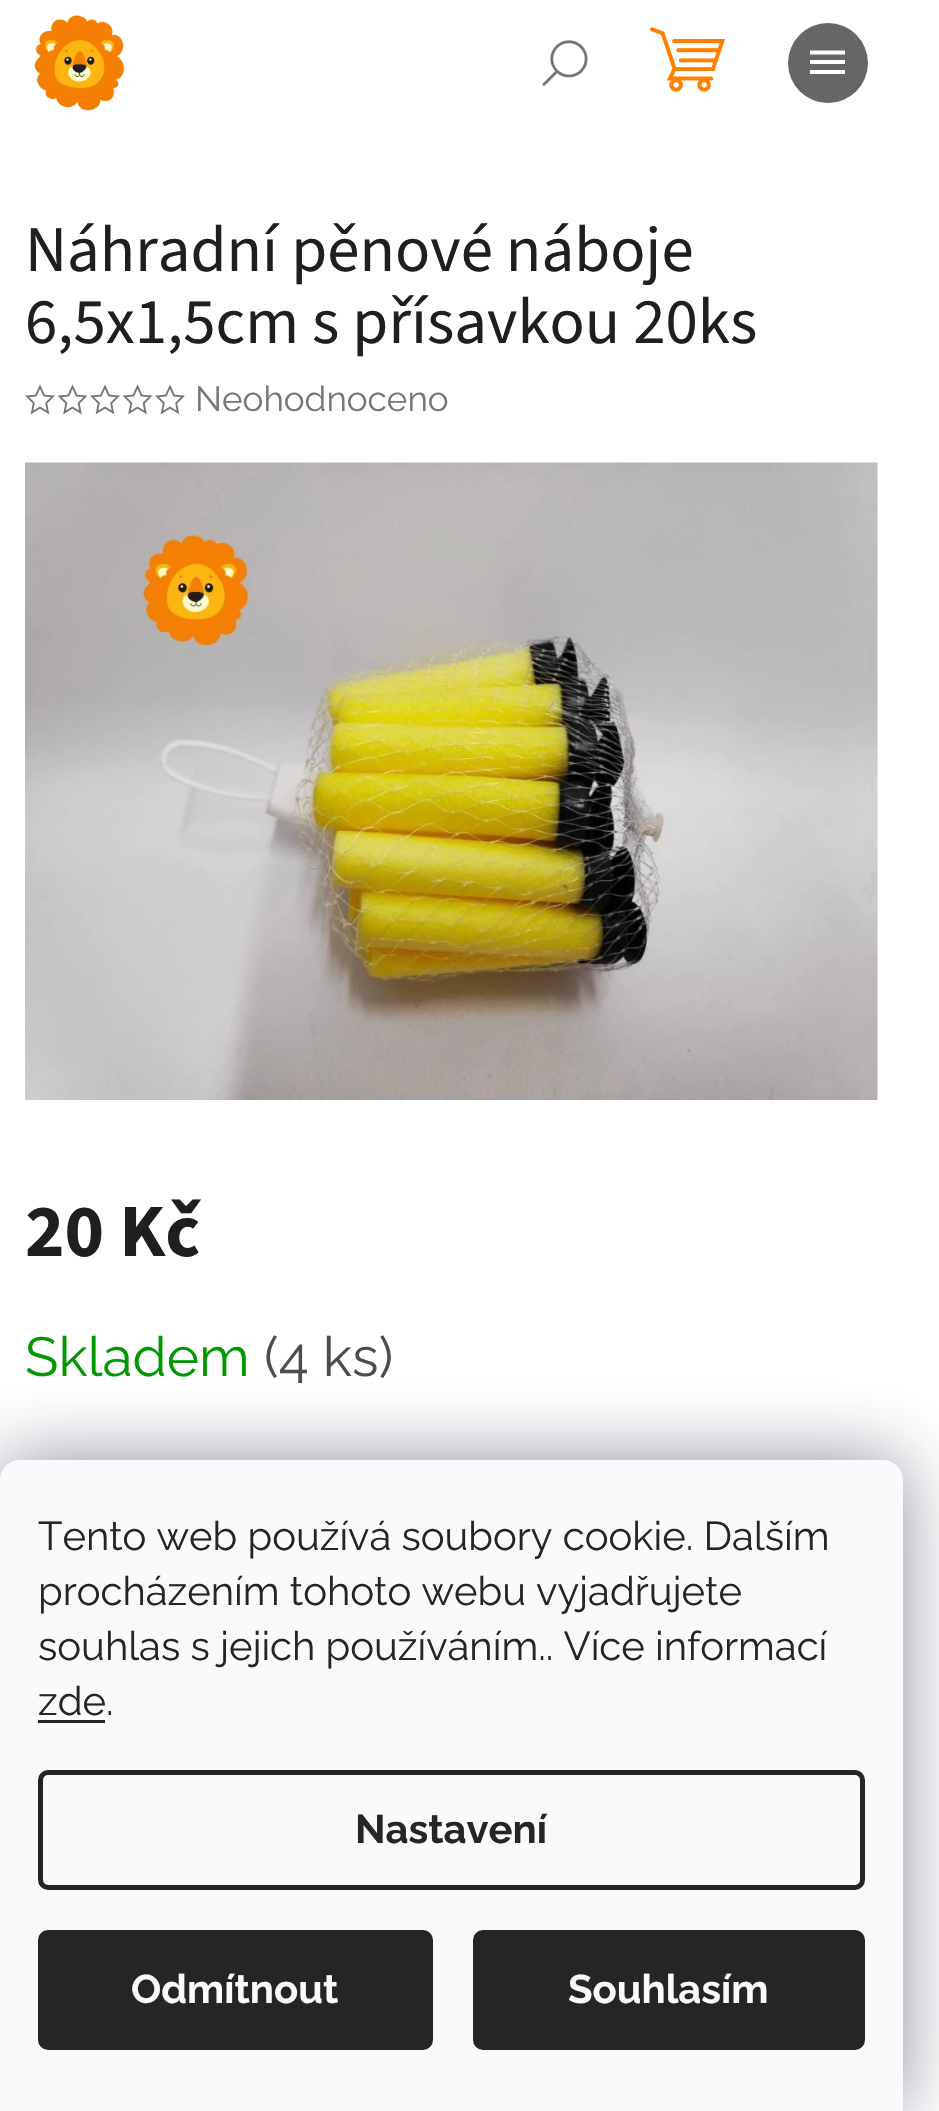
#include "include/core/SkBlurTypes.h"
#include "include/core/SkCanvas.h"
#include "include/core/SkData.h"
#include "include/core/SkFont.h"
#include "include/core/SkFontMgr.h"
#include "include/core/SkImage.h"
#include "include/core/SkMaskFilter.h"
#include "include/core/SkPaint.h"
#include "include/core/SkPathBuilder.h"
#include "include/core/SkTextBlob.h"
#include "include/effects/SkDashPathEffect.h"
#include "include/effects/SkGradientShader.h"
#include "include/utils/SkParsePath.h"

extern sk_sp<SkFontMgr> fontMgr;

static SkFont font(const char* family, int weight, float size, bool italic = false) {
    SkFontStyle style(weight, SkFontStyle::kNormal_Width,
        italic ? SkFontStyle::kItalic_Slant : SkFontStyle::kUpright_Slant);
    SkFont result(fontMgr->matchFamilyStyle(family, style), size);
    result.setSubpixel(true);
    return result;
}

static void drawLabel(SkCanvas* canvas, const char* s, float x, float y, const SkFont& font, SkColor color) {
    SkPaint ink(SkColor4f::FromColor(color));
    ink.setAntiAlias(true);
    canvas->drawString(s, x, y, font, ink);
}

static void fillRect(SkCanvas* canvas, float x, float y, float w, float h, SkColor color) {
    SkPaint ink(SkColor4f::FromColor(color));
    ink.setAntiAlias(true);
    canvas->drawRect(SkRect::MakeXYWH(x, y, w, h), ink);
}

static void fillRRect(SkCanvas* canvas, float x, float y, float w, float h, float radius, SkColor color) {
    SkPaint ink(SkColor4f::FromColor(color));
    ink.setAntiAlias(true);
    canvas->drawRoundRect(SkRect::MakeXYWH(x, y, w, h), radius, radius, ink);
}

static void drawPhoto(SkCanvas* canvas, const char* path, float x, float y, float w, float h) {
    auto image = SkImages::DeferredFromEncodedData(SkData::MakeFromFileName(path));
    canvas->drawImageRect(image, SkRect::MakeXYWH(x, y, w, h), SkSamplingOptions());
}

static SkPath parsePath(const char* data, bool evenOdd = false) {
    SkPath result = *SkParsePath::FromSVGString(data);
    if (evenOdd) result.setFillType(SkPathFillType::kEvenOdd);
    return result;
}

void draw(SkCanvas* canvas) {
    SkPaint paint;
    paint.setAntiAlias(true);
    canvas->clear(0xFFFFFFFF);
    drawPhoto(canvas, "assets/img1.png", 34, 15, 91, 96);
    drawPhoto(canvas, "assets/img2.png", 650, 27, 75, 65);
    drawPhoto(canvas, "assets/img3.png", 542, 40, 46, 46);
    paint.setColor(0xFF666666);
    canvas->drawCircle(828, 63, 40, paint);
    paint.setColor(0xFFFFFFFF);
    canvas->drawPath(parsePath("M810 74H845V70H810ZM810 64H845V60H810ZM810 50.5V54.5H845V50.5Z"), paint);
    SkFont font1 = font("Source Sans 3", 400, 65);
    drawLabel(canvas, "Náhradní pěnové náboje", 25, 271, font1, 0xFF1F1F1F);
    drawLabel(canvas, "6,5x1,5cm s přísavkou 20ks", 25, 343, font1, 0xFF1F1F1F);
    drawPhoto(canvas, "assets/img4.png", 25, 384, 30, 31);
    drawPhoto(canvas, "assets/img5.png", 57, 384, 31, 31);
    drawPhoto(canvas, "assets/img4.png", 90, 384, 30, 31);
    drawPhoto(canvas, "assets/img5.png", 122, 384, 31, 31);
    drawPhoto(canvas, "assets/img4.png", 155, 384, 30, 31);
    SkFont font2 = font("Raleway", 400, 35);
    drawLabel(canvas, "Neohodnoceno", 195, 411, font2, 0xFF767676);
    drawPhoto(canvas, "assets/img6.png", 25, 462, 853, 638);
    SkFont font3 = font("Source Sans 3", 700, 75);
    drawLabel(canvas, "20 Kč", 25, 1256, font3, 0xFF1F1F1F);
    SkFont font4 = font("Raleway", 400, 55);
    drawLabel(canvas, "Skladem", 25, 1376, font4, 0xFF009901);
    drawLabel(canvas, "(4 ks)", 264, 1376, font4, 0xFF4D4D4D);
    paint.setColor(0x801B1939);
    paint.setMaskFilter(SkMaskFilter::MakeBlur(kNormal_SkBlurStyle, 37.5f));
    canvas->drawRoundRect(SkRect::MakeXYWH(0, 1460, 903, 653), 20, 20, paint);
    paint.setMaskFilter(nullptr);
    paint.setColor(0xFFF8FAFB);
    canvas->drawPath(parsePath("M20 1460H883C894 1460 903 1469 903 1480V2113H0V1480C0 1469 9 1460 20 1460Z"), paint);
    SkFont font5 = font("Raleway", 400, 40);
    drawLabel(canvas, "Tento web používá soubory cookie. Dalším", 38, 1550, font5, 0xFF252525);
    drawLabel(canvas, "procházením tohoto webu vyjadřujete", 38, 1605, font5, 0xFF252525);
    drawLabel(canvas, "souhlas s jejich používáním.. Více informací", 38, 1660, font5, 0xFF252525);
    drawLabel(canvas, "zde.", 38, 1715, font5, 0xFF252525);
    fillRect(canvas, 38, 1720, 67, 3, 0xFF252525);
    paint.setStroke(true);
    paint.setStrokeWidth(5);
    paint.setColor(0xFF252525);
    canvas->drawRoundRect(SkRect::MakeXYWH(40.5f, 1772.5f, 822, 115), 7.5f, 7.5f, paint);
    SkFont font6 = font("Raleway", 700, 40);
    drawLabel(canvas, "Nastavení", 355, 1843, font6, 0xFF252525);
    fillRRect(canvas, 38, 1930, 395, 120, 10, 0xFF252525);
    drawLabel(canvas, "Odmítnout", 131, 2003, font6, 0xFFF8FAFB);
    fillRRect(canvas, 473, 1930, 392, 120, 10, 0xFF252525);
    drawLabel(canvas, "Souhlasím", 568, 2003, font6, 0xFFF8FAFB);
}
